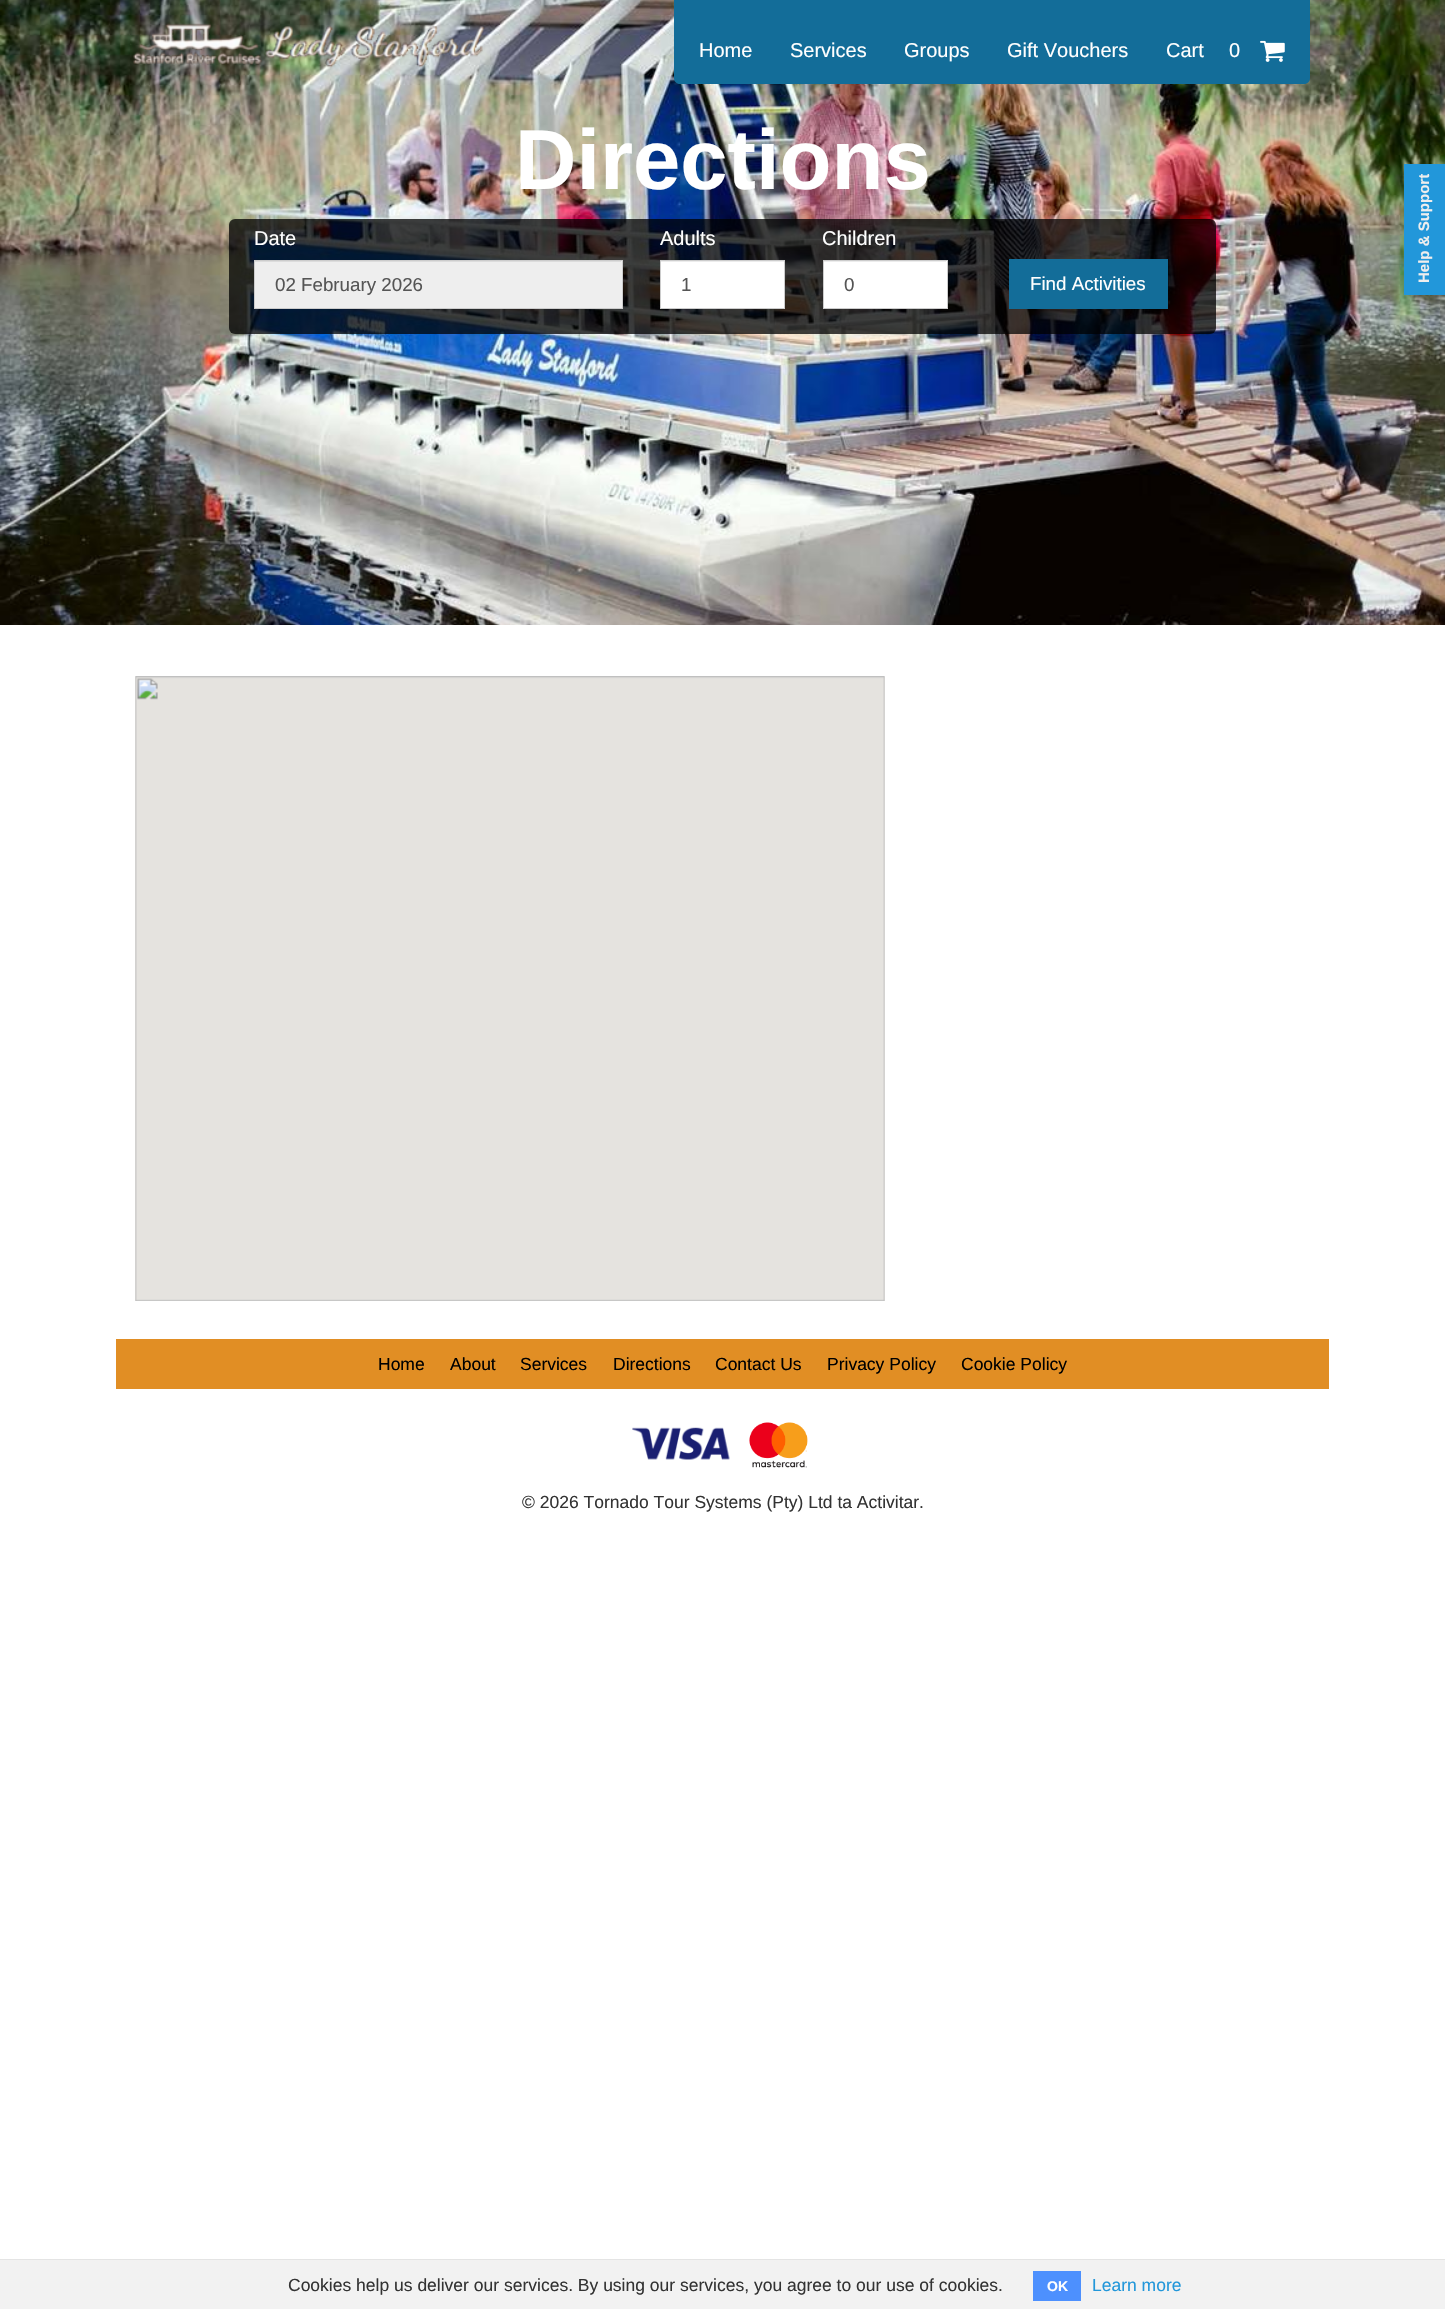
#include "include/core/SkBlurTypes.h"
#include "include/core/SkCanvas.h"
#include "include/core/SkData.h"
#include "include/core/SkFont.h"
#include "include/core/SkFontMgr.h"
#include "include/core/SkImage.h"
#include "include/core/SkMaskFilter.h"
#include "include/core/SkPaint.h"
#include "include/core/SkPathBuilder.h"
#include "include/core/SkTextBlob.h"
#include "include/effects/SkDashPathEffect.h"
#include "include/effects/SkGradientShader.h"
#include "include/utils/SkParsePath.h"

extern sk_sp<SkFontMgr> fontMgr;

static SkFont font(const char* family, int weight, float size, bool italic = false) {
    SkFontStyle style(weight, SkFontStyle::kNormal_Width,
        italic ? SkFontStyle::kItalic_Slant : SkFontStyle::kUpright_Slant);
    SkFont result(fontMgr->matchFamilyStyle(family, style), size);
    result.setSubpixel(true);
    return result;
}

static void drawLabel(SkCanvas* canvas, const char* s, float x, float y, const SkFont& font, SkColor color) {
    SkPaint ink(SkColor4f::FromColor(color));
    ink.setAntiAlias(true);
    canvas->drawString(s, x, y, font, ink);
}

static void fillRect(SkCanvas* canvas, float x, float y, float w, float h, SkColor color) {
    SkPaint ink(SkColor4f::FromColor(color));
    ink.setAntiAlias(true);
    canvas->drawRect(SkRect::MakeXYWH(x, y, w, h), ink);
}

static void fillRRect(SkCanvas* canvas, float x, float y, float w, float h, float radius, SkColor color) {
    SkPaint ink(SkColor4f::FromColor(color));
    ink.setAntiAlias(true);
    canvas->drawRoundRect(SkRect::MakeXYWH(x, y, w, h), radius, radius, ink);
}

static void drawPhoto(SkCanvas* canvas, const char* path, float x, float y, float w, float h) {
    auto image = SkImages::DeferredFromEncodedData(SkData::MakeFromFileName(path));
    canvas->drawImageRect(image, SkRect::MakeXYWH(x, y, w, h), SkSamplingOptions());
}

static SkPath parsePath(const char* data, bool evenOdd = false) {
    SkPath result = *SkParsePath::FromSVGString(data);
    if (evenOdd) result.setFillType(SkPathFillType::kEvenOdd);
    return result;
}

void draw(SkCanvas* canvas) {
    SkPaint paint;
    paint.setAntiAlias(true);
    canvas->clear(0xFFFFFFFF);
    drawPhoto(canvas, "assets/img3.png", 0, 0, 1445, 625);
    drawPhoto(canvas, "assets/img1.png", 133, 23, 352, 45);
    paint.setColor(0xFF136D99);
    canvas->drawPath(parsePath("M674 0H1310V78C1310 81.5 1307.5 84 1304 84H680C676.5 84 674 81.5 674 78Z"), paint);
    SkFont font1 = font("Liberation Sans", 400, 20);
    drawLabel(canvas, "Home", 699, 57, font1, 0xFFFFFFFF);
    drawLabel(canvas, "Services", 790, 57, font1, 0xFFFFFFFF);
    drawLabel(canvas, "Groups", 904, 57, font1, 0xFFFFFFFF);
    drawLabel(canvas, "Gift Vouchers", 1007, 57, font1, 0xFFFFFFFF);
    drawLabel(canvas, "Cart", 1166, 57, font1, 0xFFFFFFFF);
    drawLabel(canvas, "0", 1229, 57, font1, 0xFFFFFFFF);
    drawPhoto(canvas, "assets/img2.png", 1260, 40, 25, 22);
    SkFont font2 = font("Liberation Sans", 700, 85);
    drawLabel(canvas, "Directions", 515, 189, font2, 0xFFFFFFFF);
    fillRRect(canvas, 229, 219, 987, 115, 6, 0xBF000000);
    drawLabel(canvas, "Date", 254, 245, font1, 0xFFFFFFFF);
    fillRect(canvas, 255, 261, 367, 47, 0xFFEEEEEE);
    fillRect(canvas, 255, 261, 366, 1, 0xFFDCDCDC);
    paint.setStroke(true);
    paint.setStrokeWidth(1);
    paint.setColor(0xFFCCCCCC);
    canvas->drawRect(SkRect::MakeXYWH(254.5f, 260.5f, 368, 48), paint);
    SkFont font3 = font("Liberation Sans", 400, 18.75f);
    drawLabel(canvas, "02 February 2026", 275, 291, font3, 0xFF555555);
    drawLabel(canvas, "Adults", 660, 245, font1, 0xFFFFFFFF);
    fillRect(canvas, 661, 262, 123, 46, 0xFFFFFFFF);
    fillRect(canvas, 661, 261, 123, 1, 0xFFECECEC);
    canvas->drawRect(SkRect::MakeXYWH(660.5f, 260.5f, 124, 48), paint);
    drawLabel(canvas, "1", 681, 291, font3, 0xFF555555);
    drawLabel(canvas, "Children", 822, 245, font1, 0xFFFFFFFF);
    fillRect(canvas, 824, 261, 123, 47, 0xFFFFFFFF);
    fillRect(canvas, 824, 261, 122, 1, 0xFFECECEC);
    canvas->drawRect(SkRect::MakeXYWH(823.5f, 260.5f, 124, 48), paint);
    drawLabel(canvas, "0", 844, 291, font3, 0xFF555555);
    fillRect(canvas, 1009, 259, 159, 50, 0xFF136D99);
    drawLabel(canvas, "Find Activities", 1030, 290, font3, 0xFFFFFFFF);
    fillRect(canvas, 1404, 164, 41, 131, 0xFF2297DA);
    SkFont font4 = font("Liberation Sans", 700, 15);
    canvas->save();
    canvas->rotate(-90, 1429, 283);
    drawLabel(canvas, "Help & Support", 1429, 283, font4, 0xFFEEEEEE);
    canvas->restore();
    drawPhoto(canvas, "assets/img4.png", 135, 676, 750, 625);
    fillRect(canvas, 116, 1339, 1213, 50, 0xFFE18E24);
    SkFont font5 = font("Liberation Sans", 400, 17.5f);
    drawLabel(canvas, "Home", 378, 1370, font5, 0xFF000000);
    drawLabel(canvas, "About", 450, 1370, font5, 0xFF000000);
    drawLabel(canvas, "Services", 520, 1370, font5, 0xFF000000);
    drawLabel(canvas, "Directions", 613, 1370, font5, 0xFF000000);
    drawLabel(canvas, "Contact Us", 715, 1370, font5, 0xFF000000);
    drawLabel(canvas, "Privacy Policy", 827, 1370, font5, 0xFF000000);
    drawLabel(canvas, "Cookie Policy", 961, 1370, font5, 0xFF000000);
    drawPhoto(canvas, "assets/img5.png", 632, 1427, 98, 33);
    drawPhoto(canvas, "assets/img6.png", 749, 1422, 59, 46);
    drawLabel(canvas, "© 2026 Tornado Tour Systems (Pty) Ltd ta Activitar.", 522, 1508, font5, 0xFF333333);
    fillRect(canvas, 0, 2260, 1445, 49, 0xFFF2F2F2);
    fillRect(canvas, 0, 2259, 1445, 1, 0xFFE4E4E4);
    drawLabel(canvas, "Cookies help us deliver our services. By using our services, you agree to our use of cookies.", 288, 2291, font5, 0xFF333333);
    fillRect(canvas, 1033, 2271, 48, 30, 0xFF4D90FE);
    SkFont font6 = font("Liberation Sans", 700, 14);
    drawLabel(canvas, "OK", 1047, 2291, font6, 0xFFFFFFFF);
    drawLabel(canvas, "Learn more", 1092, 2291, font5, 0xFF2297DA);
}
